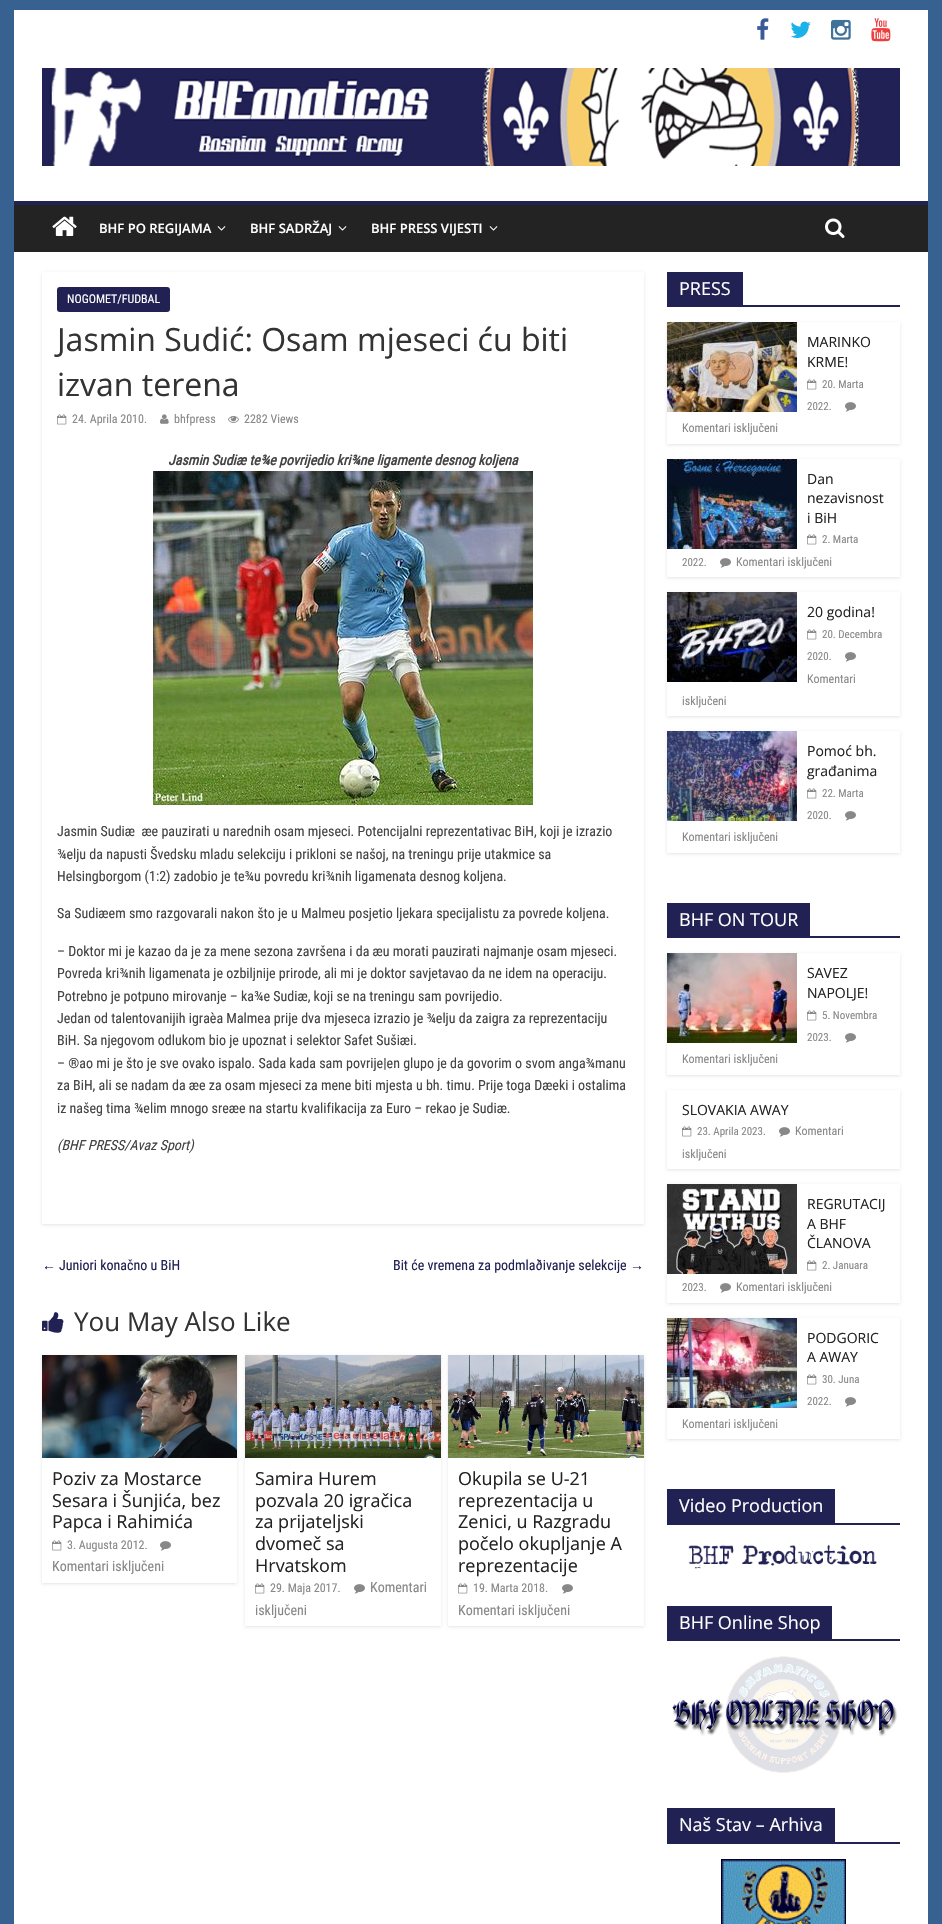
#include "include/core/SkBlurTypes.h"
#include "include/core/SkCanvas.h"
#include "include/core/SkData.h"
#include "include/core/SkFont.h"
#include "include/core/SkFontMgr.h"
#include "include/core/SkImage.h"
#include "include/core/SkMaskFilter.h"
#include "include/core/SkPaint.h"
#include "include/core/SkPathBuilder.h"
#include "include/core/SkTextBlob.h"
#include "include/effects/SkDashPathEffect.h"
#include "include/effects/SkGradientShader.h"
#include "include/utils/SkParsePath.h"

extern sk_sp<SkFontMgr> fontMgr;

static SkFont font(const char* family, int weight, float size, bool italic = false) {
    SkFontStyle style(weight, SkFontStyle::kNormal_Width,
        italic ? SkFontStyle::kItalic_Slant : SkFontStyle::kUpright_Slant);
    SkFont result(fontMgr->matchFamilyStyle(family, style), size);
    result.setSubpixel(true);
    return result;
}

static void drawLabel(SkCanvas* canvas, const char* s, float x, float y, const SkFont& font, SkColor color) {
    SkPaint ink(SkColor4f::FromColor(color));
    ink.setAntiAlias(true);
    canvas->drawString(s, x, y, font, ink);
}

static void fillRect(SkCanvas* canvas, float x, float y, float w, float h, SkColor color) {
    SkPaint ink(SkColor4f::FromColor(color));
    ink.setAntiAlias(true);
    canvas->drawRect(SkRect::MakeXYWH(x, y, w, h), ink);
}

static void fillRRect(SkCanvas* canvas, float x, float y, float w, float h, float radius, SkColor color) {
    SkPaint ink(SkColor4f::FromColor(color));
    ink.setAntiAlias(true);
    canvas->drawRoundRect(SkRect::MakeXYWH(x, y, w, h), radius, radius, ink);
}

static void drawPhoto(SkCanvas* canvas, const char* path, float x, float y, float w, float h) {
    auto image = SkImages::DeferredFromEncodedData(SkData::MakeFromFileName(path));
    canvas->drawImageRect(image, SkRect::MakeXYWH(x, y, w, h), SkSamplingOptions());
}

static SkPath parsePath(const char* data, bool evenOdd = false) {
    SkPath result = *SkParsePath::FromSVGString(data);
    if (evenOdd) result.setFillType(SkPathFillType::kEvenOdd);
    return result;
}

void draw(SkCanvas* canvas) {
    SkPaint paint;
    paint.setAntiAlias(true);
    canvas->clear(0xFF366190);
    fillRect(canvas, 14, 10, 914, 191, 0xFFFFFFFF);
    drawPhoto(canvas, "assets/img1.png", 757, 18, 12, 22);
    drawPhoto(canvas, "assets/img2.png", 790, 21, 21, 17);
    drawPhoto(canvas, "assets/img3.png", 831, 19, 20, 21);
    drawPhoto(canvas, "assets/img4.png", 871, 18, 20, 24);
    drawPhoto(canvas, "assets/img5.png", 42, 68, 858, 98);
    fillRect(canvas, 14, 205, 914, 47, 0xFF232323);
    fillRect(canvas, 14, 201, 914, 4, 0xFF212154);
    drawPhoto(canvas, "assets/img6.png", 52, 216, 25, 20);
    SkFont font1 = font("Open Sans", 600, 13);
    drawLabel(canvas, "BHF PO REGIJAMA", 99, 233, font1, 0xFFFFFFFF);
    drawPhoto(canvas, "assets/img7.png", 217, 226, 9, 5);
    drawLabel(canvas, "BHF SADRŽAJ", 250, 233, font1, 0xFFFFFFFF);
    drawPhoto(canvas, "assets/img7.png", 338, 226, 9, 5);
    drawLabel(canvas, "BHF PRESS VIJESTI", 371, 233, font1, 0xFFFFFFFF);
    drawPhoto(canvas, "assets/img7.png", 489, 226, 9, 5);
    drawPhoto(canvas, "assets/img8.png", 825, 218, 20, 20);
    fillRect(canvas, 14, 252, 914, 1672, 0xFFFFFFFF);
    canvas->save();
    canvas->clipPath(parsePath("M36 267H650V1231H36ZM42 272H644V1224H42Z", true), true);
    paint.setColor(0x1A000000);
    paint.setMaskFilter(SkMaskFilter::MakeBlur(kNormal_SkBlurStyle, 1.5f));
    canvas->drawRect(SkRect::MakeXYWH(42, 273, 602, 952), paint);
    paint.setMaskFilter(nullptr);
    canvas->restore();
    fillRRect(canvas, 57, 287, 113, 25, 3, 0xFF212154);
    SkFont font2 = font("Roboto Condensed", 400, 12);
    drawLabel(canvas, "NOGOMET/FUDBAL", 67, 303, font2, 0xFFFFFFFF);
    SkFont font3 = font("Open Sans", 400, 32);
    drawLabel(canvas, "Jasmin Sudić: Osam mjeseci ću biti", 57, 351, font3, 0xFF333333);
    drawLabel(canvas, "izvan terena", 57, 396, font3, 0xFF333333);
    drawPhoto(canvas, "assets/img9.png", 57, 414, 10, 11);
    drawLabel(canvas, "24. Aprila 2010.", 72, 423, font2, 0xFF888888);
    drawPhoto(canvas, "assets/img10.png", 160, 414, 9, 10);
    drawLabel(canvas, "bhfpress", 174, 423, font2, 0xFF888888);
    drawPhoto(canvas, "assets/img11.png", 228, 415, 11, 8);
    drawLabel(canvas, "2282 Views", 244, 423, font2, 0xFF888888);
    SkFont font4 = font("Roboto Condensed", 700, 14, true);
    drawLabel(canvas, "Jasmin Sudiæ te¾e povrijedio kri¾ne ligamente desnog koljena", 168, 465, font4, 0xFF444444);
    drawPhoto(canvas, "assets/img12.png", 153, 471, 380, 334);
    SkFont font5 = font("Roboto Condensed", 400, 14);
    drawLabel(canvas, "Jasmin Sudiæ  æe pauzirati u narednih osam mjeseci. Potencijalni reprezentativac BiH, koji je izrazio", 57, 836, font5, 0xFF444444);
    drawLabel(canvas, "¾elju da napusti Švedsku mladu selekciju i prikloni se našoj, na treningu prije utakmice sa", 57, 859, font5, 0xFF444444);
    drawLabel(canvas, "Helsingborgom (1:2) zadobio je te¾u povredu kri¾nih ligamenata desnog koljena.", 57, 881, font5, 0xFF444444);
    drawLabel(canvas, "Sa Sudiæem smo razgovarali nakon što je u Malmeu posjetio ljekara specijalistu za povrede koljena.", 57, 918, font5, 0xFF444444);
    drawLabel(canvas, "– Doktor mi je kazao da je za mene sezona završena i da æu morati pauzirati najmanje osam mjeseci.", 57, 956, font5, 0xFF444444);
    drawLabel(canvas, "Povreda kri¾nih ligamenata je ozbiljnije prirode, ali mi je doktor savjetavao da ne idem na operaciju.", 57, 978, font5, 0xFF444444);
    drawLabel(canvas, "Potrebno je potpuno mirovanje – ka¾e Sudiæ, koji se na treningu sam povrijedio.", 57, 1001, font5, 0xFF444444);
    drawLabel(canvas, "Jedan od talentovanijih igraèa Malmea prije dva mjeseca izrazio je ¾elju da zaigra za reprezentaciju", 57, 1023, font5, 0xFF444444);
    drawLabel(canvas, "BiH. Sa njegovom odlukom bio je upoznat i selektor Safet Sušiæi.", 57, 1045, font5, 0xFF444444);
    drawLabel(canvas, "– ®ao mi je što je sve ovako ispalo. Sada kada sam povrije|en glupo je da govorim o svom anga¾manu", 57, 1068, font5, 0xFF444444);
    drawLabel(canvas, "za BiH, ali se nadam da æe za osam mjeseci za mene biti mjesta u bh. timu. Prije toga Dæeki i ostalima", 57, 1090, font5, 0xFF444444);
    drawLabel(canvas, "iz našeg tima ¾elim mnogo sreæe na startu kvalifikacija za Euro – rekao je Sudiæ.", 57, 1113, font5, 0xFF444444);
    SkFont font6 = font("Roboto Condensed", 400, 14, true);
    drawLabel(canvas, "(BHF PRESS/Avaz Sport)", 57, 1150, font6, 0xFF444444);
    SkFont font7 = font("Liberation Serif", 400, 14);
    drawLabel(canvas, "←", 42, 1270, font7, 0xFF212154);
    drawLabel(canvas, "Juniori konačno u BiH", 59, 1270, font5, 0xFF212154);
    drawLabel(canvas, "Bit će vremena za podmlaðivanje selekcije", 393, 1270, font5, 0xFF212154);
    drawLabel(canvas, "→", 630, 1270, font7, 0xFF212154);
    drawPhoto(canvas, "assets/img13.png", 42, 1312, 22, 21);
    SkFont font8 = font("Open Sans", 400, 26);
    drawLabel(canvas, "You May Also Like", 74, 1331, font8, 0xFF333333);
    canvas->save();
    canvas->clipPath(parsePath("M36 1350H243V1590H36ZM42 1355H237V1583H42Z", true), true);
    paint.setMaskFilter(SkMaskFilter::MakeBlur(kNormal_SkBlurStyle, 1.5f));
    canvas->drawRect(SkRect::MakeXYWH(42, 1356, 195, 228), paint);
    paint.setMaskFilter(nullptr);
    canvas->restore();
    drawPhoto(canvas, "assets/img14.png", 42, 1355, 195, 103);
    SkFont font9 = font("Open Sans", 400, 18);
    drawLabel(canvas, "Poziv za Mostarce", 52, 1485, font9, 0xFF232323);
    drawLabel(canvas, "Sesara i Šunjića, bez", 52, 1507, font9, 0xFF232323);
    drawLabel(canvas, "Papca i Rahimića", 52, 1528, font9, 0xFF232323);
    drawPhoto(canvas, "assets/img9.png", 52, 1540, 10, 11);
    drawLabel(canvas, "3. Augusta 2012.", 67, 1549, font2, 0xFF888888);
    drawPhoto(canvas, "assets/img15.png", 160, 1541, 11, 10);
    drawLabel(canvas, "Komentari isključeni", 52, 1571, font5, 0xFF888888);
    canvas->save();
    canvas->clipPath(parsePath("M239 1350H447V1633H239ZM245 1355H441V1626H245Z", true), true);
    paint.setMaskFilter(SkMaskFilter::MakeBlur(kNormal_SkBlurStyle, 1.5f));
    canvas->drawRect(SkRect::MakeXYWH(245, 1356, 196, 271), paint);
    paint.setMaskFilter(nullptr);
    canvas->restore();
    drawPhoto(canvas, "assets/img16.png", 245, 1355, 196, 103);
    drawLabel(canvas, "Samira Hurem", 255, 1485, font9, 0xFF232323);
    drawLabel(canvas, "pozvala 20 igračica", 255, 1507, font9, 0xFF232323);
    drawLabel(canvas, "za prijateljski", 255, 1528, font9, 0xFF232323);
    drawLabel(canvas, "dvomeč sa", 255, 1550, font9, 0xFF232323);
    drawLabel(canvas, "Hrvatskom", 255, 1572, font9, 0xFF232323);
    drawPhoto(canvas, "assets/img15.png", 354, 1584, 11, 10);
    drawLabel(canvas, "Komentari", 370, 1592, font5, 0xFF888888);
    drawLabel(canvas, "isključeni", 255, 1615, font5, 0xFF888888);
    drawPhoto(canvas, "assets/img9.png", 255, 1583, 10, 11);
    drawLabel(canvas, "29. Maja 2017.", 270, 1592, font2, 0xFF888888);
    canvas->save();
    canvas->clipPath(parsePath("M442 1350H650V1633H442ZM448 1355H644V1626H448Z", true), true);
    paint.setMaskFilter(SkMaskFilter::MakeBlur(kNormal_SkBlurStyle, 1.5f));
    canvas->drawRect(SkRect::MakeXYWH(448, 1356, 196, 271), paint);
    paint.setMaskFilter(nullptr);
    canvas->restore();
    drawPhoto(canvas, "assets/img17.png", 448, 1355, 196, 103);
    drawLabel(canvas, "Okupila se U-21", 458, 1485, font9, 0xFF232323);
    drawLabel(canvas, "reprezentacija u", 458, 1507, font9, 0xFF232323);
    drawLabel(canvas, "Zenici, u Razgradu", 458, 1528, font9, 0xFF232323);
    drawLabel(canvas, "počelo okupljanje A", 458, 1550, font9, 0xFF232323);
    drawLabel(canvas, "reprezentacije", 458, 1572, font9, 0xFF232323);
    drawPhoto(canvas, "assets/img9.png", 458, 1583, 10, 11);
    drawLabel(canvas, "19. Marta 2018.", 473, 1592, font2, 0xFF888888);
    drawPhoto(canvas, "assets/img15.png", 562, 1584, 11, 10);
    drawLabel(canvas, "Komentari isključeni", 458, 1615, font5, 0xFF888888);
    fillRect(canvas, 667, 305, 233, 2, 0xFF212154);
    fillRect(canvas, 667, 272, 76, 33, 0xFF212154);
    drawLabel(canvas, "PRESS", 679, 295, font9, 0xFFFFFFFF);
    canvas->save();
    canvas->clipPath(parsePath("M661 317H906V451H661ZM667 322H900V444H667Z", true), true);
    paint.setMaskFilter(SkMaskFilter::MakeBlur(kNormal_SkBlurStyle, 1.5f));
    canvas->drawRect(SkRect::MakeXYWH(667, 323, 233, 122), paint);
    paint.setMaskFilter(nullptr);
    canvas->restore();
    drawPhoto(canvas, "assets/img18.png", 667, 322, 130, 90);
    SkFont font10 = font("Open Sans", 400, 14);
    drawLabel(canvas, "MARINKO", 807, 347, font10, 0xFF232323);
    drawLabel(canvas, "KRME!", 807, 367, font10, 0xFF232323);
    drawPhoto(canvas, "assets/img9.png", 807, 379, 10, 11);
    SkFont font11 = font("Roboto Condensed", 400, 11);
    drawLabel(canvas, "20. Marta", 822, 388, font11, 0xFF888888);
    drawLabel(canvas, "2022.", 807, 410, font11, 0xFF888888);
    drawPhoto(canvas, "assets/img15.png", 845, 402, 11, 10);
    drawLabel(canvas, "Komentari isključeni", 682, 432, font2, 0xFF888888);
    canvas->save();
    canvas->clipPath(parsePath("M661 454H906V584H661ZM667 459H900V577H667Z", true), true);
    paint.setMaskFilter(SkMaskFilter::MakeBlur(kNormal_SkBlurStyle, 1.5f));
    canvas->drawRect(SkRect::MakeXYWH(667, 460, 233, 118), paint);
    paint.setMaskFilter(nullptr);
    canvas->restore();
    drawPhoto(canvas, "assets/img19.png", 667, 459, 130, 90);
    drawLabel(canvas, "Dan", 807, 484, font10, 0xFF232323);
    drawLabel(canvas, "nezavisnost", 807, 503, font10, 0xFF232323);
    drawLabel(canvas, "i BiH", 807, 523, font10, 0xFF232323);
    drawPhoto(canvas, "assets/img9.png", 807, 534, 10, 11);
    drawLabel(canvas, "2. Marta", 822, 543, font11, 0xFF888888);
    drawLabel(canvas, "2022.", 682, 566, font11, 0xFF888888);
    drawPhoto(canvas, "assets/img15.png", 720, 558, 11, 10);
    drawLabel(canvas, "Komentari isključeni", 736, 566, font2, 0xFF888888);
    canvas->save();
    canvas->clipPath(parsePath("M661 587H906V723H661ZM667 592H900V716H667Z", true), true);
    paint.setMaskFilter(SkMaskFilter::MakeBlur(kNormal_SkBlurStyle, 1.5f));
    canvas->drawRect(SkRect::MakeXYWH(667, 593, 233, 124), paint);
    paint.setMaskFilter(nullptr);
    canvas->restore();
    drawPhoto(canvas, "assets/img20.png", 667, 592, 130, 90);
    drawLabel(canvas, "20 godina!", 807, 617, font10, 0xFF232323);
    drawPhoto(canvas, "assets/img9.png", 807, 629, 10, 11);
    drawLabel(canvas, "20. Decembra", 822, 638, font11, 0xFF888888);
    drawLabel(canvas, "2020.", 807, 660, font11, 0xFF888888);
    drawPhoto(canvas, "assets/img15.png", 845, 652, 11, 10);
    drawLabel(canvas, "Komentari", 807, 683, font2, 0xFF888888);
    drawLabel(canvas, "isključeni", 682, 705, font2, 0xFF888888);
    canvas->save();
    canvas->clipPath(parsePath("M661 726H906V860H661ZM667 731H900V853H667Z", true), true);
    paint.setMaskFilter(SkMaskFilter::MakeBlur(kNormal_SkBlurStyle, 1.5f));
    canvas->drawRect(SkRect::MakeXYWH(667, 732, 233, 122), paint);
    paint.setMaskFilter(nullptr);
    canvas->restore();
    drawPhoto(canvas, "assets/img21.png", 667, 731, 130, 90);
    drawLabel(canvas, "Pomoć bh.", 807, 756, font10, 0xFF232323);
    drawLabel(canvas, "građanima", 807, 776, font10, 0xFF232323);
    drawPhoto(canvas, "assets/img9.png", 807, 788, 10, 11);
    drawLabel(canvas, "22. Marta", 822, 797, font11, 0xFF888888);
    drawLabel(canvas, "2020.", 807, 819, font11, 0xFF888888);
    drawPhoto(canvas, "assets/img15.png", 845, 811, 11, 10);
    drawLabel(canvas, "Komentari isključeni", 682, 841, font2, 0xFF888888);
    fillRect(canvas, 667, 936, 233, 2, 0xFF212154);
    fillRect(canvas, 667, 903, 143, 33, 0xFF212154);
    drawLabel(canvas, "BHF ON TOUR", 679, 926, font9, 0xFFFFFFFF);
    canvas->save();
    canvas->clipPath(parsePath("M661 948H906V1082H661ZM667 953H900V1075H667Z", true), true);
    paint.setMaskFilter(SkMaskFilter::MakeBlur(kNormal_SkBlurStyle, 1.5f));
    canvas->drawRect(SkRect::MakeXYWH(667, 954, 233, 122), paint);
    paint.setMaskFilter(nullptr);
    canvas->restore();
    drawPhoto(canvas, "assets/img22.png", 667, 953, 130, 90);
    drawLabel(canvas, "SAVEZ", 807, 978, font10, 0xFF232323);
    drawLabel(canvas, "NAPOLJE!", 807, 998, font10, 0xFF232323);
    drawPhoto(canvas, "assets/img9.png", 807, 1010, 10, 11);
    drawLabel(canvas, "5. Novembra", 822, 1019, font11, 0xFF888888);
    drawLabel(canvas, "2023.", 807, 1041, font11, 0xFF888888);
    drawPhoto(canvas, "assets/img15.png", 845, 1033, 11, 10);
    drawLabel(canvas, "Komentari isključeni", 682, 1063, font2, 0xFF888888);
    canvas->save();
    canvas->clipPath(parsePath("M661 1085H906V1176H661ZM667 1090H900V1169H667Z", true), true);
    paint.setMaskFilter(SkMaskFilter::MakeBlur(kNormal_SkBlurStyle, 1.5f));
    canvas->drawRect(SkRect::MakeXYWH(667, 1091, 233, 79), paint);
    paint.setMaskFilter(nullptr);
    canvas->restore();
    drawLabel(canvas, "SLOVAKIA AWAY", 682, 1115, font10, 0xFF232323);
    drawPhoto(canvas, "assets/img15.png", 779, 1127, 11, 10);
    drawLabel(canvas, "Komentari", 795, 1135, font2, 0xFF888888);
    drawLabel(canvas, "isključeni", 682, 1158, font2, 0xFF888888);
    drawPhoto(canvas, "assets/img9.png", 682, 1126, 10, 11);
    drawLabel(canvas, "23. Aprila 2023.", 697, 1135, font11, 0xFF888888);
    canvas->save();
    canvas->clipPath(parsePath("M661 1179H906V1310H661ZM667 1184H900V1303H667Z", true), true);
    paint.setMaskFilter(SkMaskFilter::MakeBlur(kNormal_SkBlurStyle, 1.5f));
    canvas->drawRect(SkRect::MakeXYWH(667, 1185, 233, 119), paint);
    paint.setMaskFilter(nullptr);
    canvas->restore();
    drawPhoto(canvas, "assets/img23.png", 667, 1184, 130, 90);
    drawLabel(canvas, "REGRUTACIJ", 807, 1209, font10, 0xFF232323);
    drawLabel(canvas, "A BHF", 807, 1229, font10, 0xFF232323);
    drawLabel(canvas, "ČLANOVA", 807, 1248, font10, 0xFF232323);
    drawPhoto(canvas, "assets/img9.png", 807, 1260, 10, 11);
    drawLabel(canvas, "2. Januara", 822, 1269, font11, 0xFF888888);
    drawLabel(canvas, "2023.", 682, 1291, font11, 0xFF888888);
    drawPhoto(canvas, "assets/img15.png", 720, 1283, 11, 10);
    drawLabel(canvas, "Komentari isključeni", 736, 1291, font2, 0xFF888888);
    canvas->save();
    canvas->clipPath(parsePath("M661 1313H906V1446H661ZM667 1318H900V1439H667Z", true), true);
    paint.setMaskFilter(SkMaskFilter::MakeBlur(kNormal_SkBlurStyle, 1.5f));
    canvas->drawRect(SkRect::MakeXYWH(667, 1319, 233, 121), paint);
    paint.setMaskFilter(nullptr);
    canvas->restore();
    drawPhoto(canvas, "assets/img24.png", 667, 1318, 130, 90);
    drawLabel(canvas, "PODGORIC", 807, 1343, font10, 0xFF232323);
    drawLabel(canvas, "A AWAY", 807, 1362, font10, 0xFF232323);
    drawPhoto(canvas, "assets/img9.png", 807, 1374, 10, 11);
    drawLabel(canvas, "30. Juna", 822, 1383, font11, 0xFF888888);
    drawLabel(canvas, "2022.", 807, 1405, font11, 0xFF888888);
    drawPhoto(canvas, "assets/img15.png", 845, 1397, 11, 10);
    drawLabel(canvas, "Komentari isključeni", 682, 1428, font2, 0xFF888888);
    fillRect(canvas, 667, 1523, 233, 2, 0xFF212154);
    fillRect(canvas, 667, 1489, 168, 34, 0xFF212154);
    drawLabel(canvas, "Video Production", 679, 1512, font9, 0xFFFFFFFF);
    drawPhoto(canvas, "assets/img25.png", 688, 1544, 189, 25);
    fillRect(canvas, 667, 1639, 233, 2, 0xFF212154);
    fillRect(canvas, 667, 1606, 165, 33, 0xFF212154);
    drawLabel(canvas, "BHF Online Shop", 679, 1629, font9, 0xFFFFFFFF);
    drawPhoto(canvas, "assets/img26.png", 672, 1656, 226, 117);
    fillRect(canvas, 667, 1842, 233, 2, 0xFF212154);
    fillRect(canvas, 667, 1808, 168, 34, 0xFF212154);
    drawLabel(canvas, "Naš Stav – Arhiva", 679, 1831, font9, 0xFFFFFFFF);
    drawPhoto(canvas, "assets/img27.png", 721, 1859, 125, 65);
}
